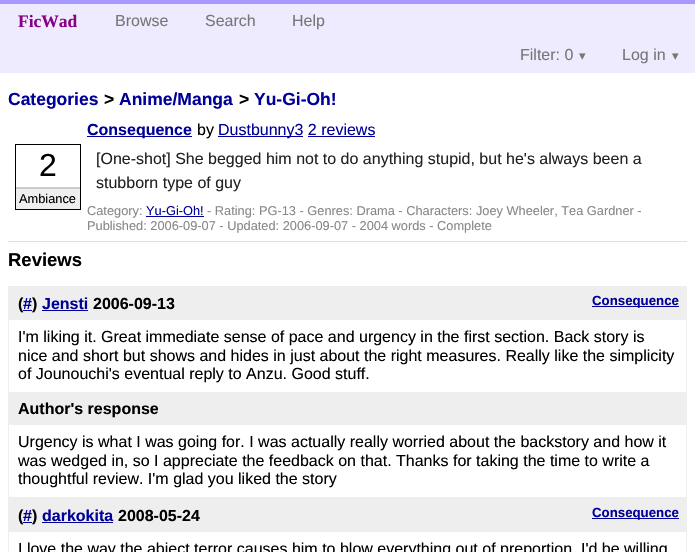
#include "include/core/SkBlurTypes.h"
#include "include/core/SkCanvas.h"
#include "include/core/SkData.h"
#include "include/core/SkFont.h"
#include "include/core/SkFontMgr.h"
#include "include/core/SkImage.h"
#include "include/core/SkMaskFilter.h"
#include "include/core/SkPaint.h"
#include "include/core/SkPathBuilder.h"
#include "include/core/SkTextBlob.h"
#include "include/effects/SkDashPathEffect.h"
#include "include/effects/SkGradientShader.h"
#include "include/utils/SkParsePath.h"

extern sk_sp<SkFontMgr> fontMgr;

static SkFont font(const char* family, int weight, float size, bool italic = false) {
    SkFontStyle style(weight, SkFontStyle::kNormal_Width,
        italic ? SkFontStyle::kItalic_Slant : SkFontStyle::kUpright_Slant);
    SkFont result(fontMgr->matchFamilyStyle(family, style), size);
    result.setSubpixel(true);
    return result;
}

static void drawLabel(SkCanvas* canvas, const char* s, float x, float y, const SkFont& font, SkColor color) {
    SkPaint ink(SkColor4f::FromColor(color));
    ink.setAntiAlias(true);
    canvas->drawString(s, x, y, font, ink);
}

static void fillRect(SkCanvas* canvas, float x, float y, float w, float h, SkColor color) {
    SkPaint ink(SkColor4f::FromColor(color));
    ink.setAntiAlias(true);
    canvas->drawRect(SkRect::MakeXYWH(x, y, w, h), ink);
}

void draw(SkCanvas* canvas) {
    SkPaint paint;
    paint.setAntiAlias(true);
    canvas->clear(0xFFFFFFFF);
    fillRect(canvas, 0, 4, 695, 69, 0xFFEEEBFF);
    fillRect(canvas, 0, 0, 695, 4, 0xFFA899FF);
    SkFont font1 = font("Liberation Serif", 700, 17.5f);
    drawLabel(canvas, "FicWad", 18, 27, font1, 0xFF880088);
    SkFont font2 = font("Liberation Sans", 400, 16);
    drawLabel(canvas, "Browse", 115, 26, font2, 0xFF777777);
    drawLabel(canvas, "Search", 205, 26, font2, 0xFF777777);
    drawLabel(canvas, "Help", 292, 26, font2, 0xFF777777);
    drawLabel(canvas, "Filter: 0", 520, 60, font2, 0xFF777777);
    SkFont font3 = font("DejaVu Sans", 400, 13);
    drawLabel(canvas, "▾", 579, 60, font3, 0xFF777777);
    drawLabel(canvas, "Log in", 622, 60, font2, 0xFF777777);
    drawLabel(canvas, "▾", 672, 60, font3, 0xFF777777);
    SkFont font4 = font("Liberation Sans", 700, 17.5f);
    drawLabel(canvas, "Categories", 8, 105, font4, 0xFF000099);
    drawLabel(canvas, ">", 104, 105, font4, 0xFF000000);
    drawLabel(canvas, "Anime/Manga", 119, 105, font4, 0xFF000099);
    drawLabel(canvas, ">", 239, 105, font4, 0xFF000000);
    drawLabel(canvas, "Yu-Gi-Oh!", 254, 105, font4, 0xFF000099);
    fillRect(canvas, 8, 241, 679, 1, 0xFFE0E0E0);
    fillRect(canvas, 87, 136, 105, 1, 0xFF000099);
    SkFont font5 = font("Liberation Sans", 700, 16);
    drawLabel(canvas, "Consequence", 87, 135, font5, 0xFF000099);
    drawLabel(canvas, "by", 197, 135, font2, 0xFF000000);
    fillRect(canvas, 218, 136, 85, 1, 0xFF000099);
    drawLabel(canvas, "Dustbunny3 2 reviews", 218, 135, font2, 0xFF000099);
    fillRect(canvas, 308, 136, 67, 1, 0xFF000099);
    paint.setStroke(true);
    paint.setStrokeWidth(1);
    paint.setColor(0xFF000000);
    canvas->drawRect(SkRect::MakeXYWH(15.5f, 144.5f, 65, 65), paint);
    SkFont font6 = font("Liberation Sans", 400, 32);
    drawLabel(canvas, "2", 39, 176, font6, 0xFF000000);
    fillRect(canvas, 16, 189, 64, 20, 0xFFEEEEEE);
    fillRect(canvas, 16, 187, 64, 2, 0xFFCCCCCC);
    SkFont font7 = font("Liberation Sans", 400, 12.8f);
    drawLabel(canvas, "Ambiance", 19, 203, font7, 0xFF000000);
    drawLabel(canvas, "[One-shot] She begged him not to do anything stupid, but he's always been a", 96, 164, font2, 0xFF222222);
    drawLabel(canvas, "stubborn type of guy", 96, 188, font2, 0xFF222222);
    drawLabel(canvas, "Category:", 87, 215, font7, 0xFF888888);
    drawLabel(canvas, "Yu-Gi-Oh!", 146, 215, font7, 0xFF000099);
    fillRect(canvas, 146, 216, 58, 1, 0xFF000099);
    drawLabel(canvas, "- Rating: PG-13 - Genres: Drama - Characters: Joey Wheeler, Tea Gardner -", 207, 215, font7, 0xFF888888);
    drawLabel(canvas, "Published: 2006-09-07 - Updated: 2006-09-07 - 2004 words - Complete", 87, 230, font7, 0xFF888888);
    SkFont font8 = font("Liberation Sans", 700, 18.5f);
    drawLabel(canvas, "Reviews", 8, 266, font8, 0xFF000000);
    paint.setColor(0xFFEEEEEE);
    canvas->drawRect(SkRect::MakeXYWH(8.5f, 286.5f, 678, 211), paint);
    fillRect(canvas, 9, 287, 677, 33, 0xFFEEEEEE);
    drawLabel(canvas, "(", 18, 309, font5, 0xFF000000);
    drawLabel(canvas, "#", 23, 309, font5, 0xFF000099);
    fillRect(canvas, 23, 310, 9, 1, 0xFF000099);
    drawLabel(canvas, ")", 32, 309, font5, 0xFF000000);
    drawLabel(canvas, "Jensti", 42, 309, font5, 0xFF000099);
    fillRect(canvas, 42, 310, 46, 1, 0xFF000099);
    drawLabel(canvas, "2006-09-13", 93, 309, font5, 0xFF000000);
    fillRect(canvas, 592, 306, 87, 1, 0xFF000099);
    SkFont font9 = font("Liberation Sans", 700, 13.25f);
    drawLabel(canvas, "Consequence", 592, 305, font9, 0xFF000099);
    drawLabel(canvas, "I'm liking it. Great immediate sense of pace and urgency in the first section. Back story is", 18, 342, font2, 0xFF000000);
    drawLabel(canvas, "nice and short but shows and hides in just about the right measures. Really like the simplicity", 18, 361, font2, 0xFF000000);
    drawLabel(canvas, "of Jounouchi's eventual reply to Anzu. Good stuff.", 18, 379, font2, 0xFF000000);
    fillRect(canvas, 9, 392, 677, 33, 0xFFEEEEEE);
    drawLabel(canvas, "Author's response", 18, 414, font5, 0xFF000000);
    drawLabel(canvas, "Urgency is what I was going for. I was actually really worried about the backstory and how it", 18, 447, font2, 0xFF000000);
    drawLabel(canvas, "was wedged in, so I appreciate the feedback on that. Thanks for taking the time to write a", 18, 466, font2, 0xFF000000);
    drawLabel(canvas, "thoughtful review. I'm glad you liked the story", 18, 484, font2, 0xFF000000);
    canvas->drawRect(SkRect::MakeXYWH(8.5f, 498.5f, 678, 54), paint);
    fillRect(canvas, 9, 499, 677, 33, 0xFFEEEEEE);
    drawLabel(canvas, "(", 18, 521, font5, 0xFF000000);
    drawLabel(canvas, "#", 23, 521, font5, 0xFF000099);
    fillRect(canvas, 23, 522, 9, 1, 0xFF000099);
    drawLabel(canvas, ")", 32, 521, font5, 0xFF000000);
    drawLabel(canvas, "darkokita", 42, 521, font5, 0xFF000099);
    fillRect(canvas, 42, 522, 71, 1, 0xFF000099);
    drawLabel(canvas, "2008-05-24", 118, 521, font5, 0xFF000000);
    fillRect(canvas, 592, 518, 87, 1, 0xFF000099);
    drawLabel(canvas, "Consequence", 592, 517, font9, 0xFF000099);
    drawLabel(canvas, "I love the way the abject terror causes him to blow everything out of preportion. I'd be willing", 18, 554, font2, 0xFF000000);
}
